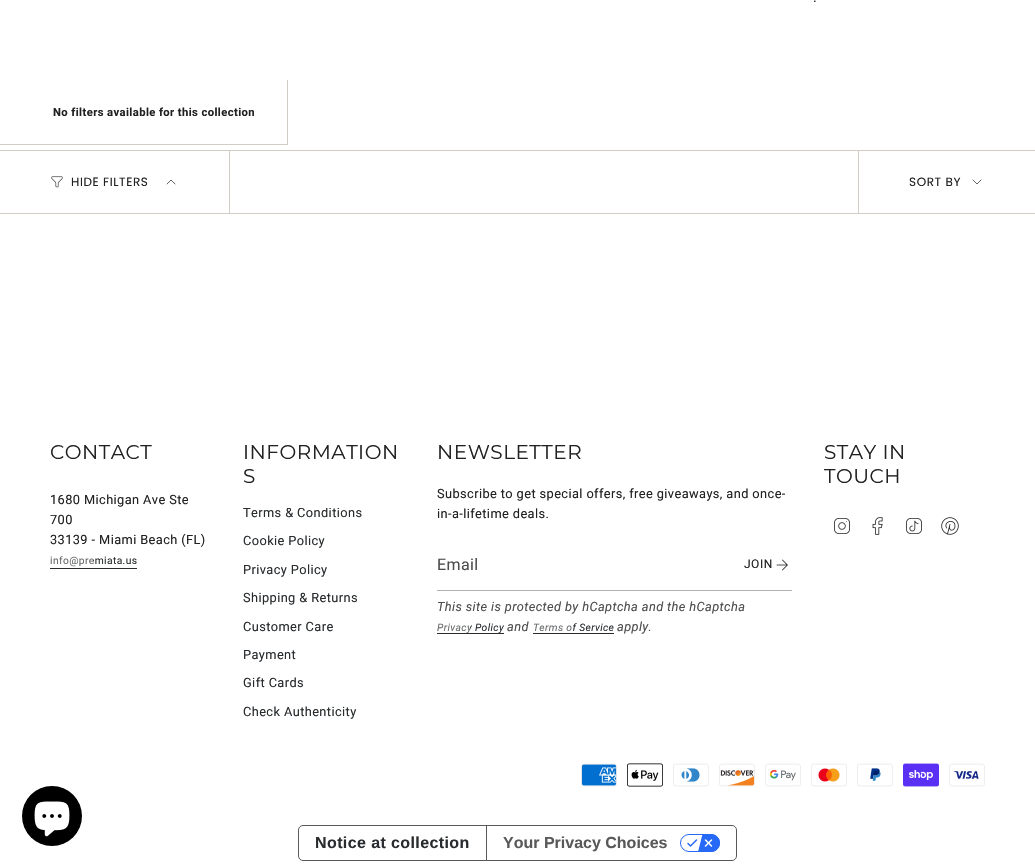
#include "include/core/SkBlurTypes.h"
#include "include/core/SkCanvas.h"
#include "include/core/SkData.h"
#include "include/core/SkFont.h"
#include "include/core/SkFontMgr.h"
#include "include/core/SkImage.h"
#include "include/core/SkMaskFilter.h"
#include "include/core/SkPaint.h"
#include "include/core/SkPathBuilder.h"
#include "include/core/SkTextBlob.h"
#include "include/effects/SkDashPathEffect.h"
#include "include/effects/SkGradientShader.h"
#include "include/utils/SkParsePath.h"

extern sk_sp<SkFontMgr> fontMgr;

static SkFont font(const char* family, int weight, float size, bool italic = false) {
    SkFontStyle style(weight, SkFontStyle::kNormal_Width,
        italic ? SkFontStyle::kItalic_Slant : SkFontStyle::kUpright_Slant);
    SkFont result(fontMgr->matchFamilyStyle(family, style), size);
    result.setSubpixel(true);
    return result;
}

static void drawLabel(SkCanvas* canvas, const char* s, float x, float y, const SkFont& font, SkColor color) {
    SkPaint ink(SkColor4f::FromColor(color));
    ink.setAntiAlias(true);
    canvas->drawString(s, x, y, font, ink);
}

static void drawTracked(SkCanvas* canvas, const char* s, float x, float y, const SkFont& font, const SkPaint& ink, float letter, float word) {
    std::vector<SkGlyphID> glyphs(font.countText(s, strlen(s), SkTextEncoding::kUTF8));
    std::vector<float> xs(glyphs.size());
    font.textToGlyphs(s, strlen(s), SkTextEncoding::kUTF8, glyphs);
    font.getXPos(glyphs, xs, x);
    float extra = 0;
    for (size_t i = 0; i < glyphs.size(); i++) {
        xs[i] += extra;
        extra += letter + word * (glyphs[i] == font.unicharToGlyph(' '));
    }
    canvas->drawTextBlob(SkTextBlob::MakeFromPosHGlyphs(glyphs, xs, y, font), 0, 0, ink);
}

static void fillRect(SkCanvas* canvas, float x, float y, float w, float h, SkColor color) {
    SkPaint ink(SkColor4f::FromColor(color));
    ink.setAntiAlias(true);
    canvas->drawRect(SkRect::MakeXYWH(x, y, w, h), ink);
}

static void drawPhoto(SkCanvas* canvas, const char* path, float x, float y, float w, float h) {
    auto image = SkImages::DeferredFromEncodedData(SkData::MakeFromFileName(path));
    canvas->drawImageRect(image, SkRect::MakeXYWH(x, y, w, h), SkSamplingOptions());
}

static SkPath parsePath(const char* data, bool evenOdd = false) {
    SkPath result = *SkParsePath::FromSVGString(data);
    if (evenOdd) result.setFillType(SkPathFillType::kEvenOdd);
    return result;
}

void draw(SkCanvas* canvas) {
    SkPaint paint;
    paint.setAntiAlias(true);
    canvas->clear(0xFFFFFFFF);
    SkFont font1 = font("Roboto", 400, 14);
    paint.setColor(0xFF212121);
    drawTracked(canvas, ".", 813, 2, font1, paint, 0.4f, 0);
    fillRect(canvas, 287, 80, 1, 65, 0xFFD1CDC4);
    fillRect(canvas, 0, 144, 288, 1, 0xFFD1CDC4);
    SkFont font2 = font("Roboto", 700, 11.25f);
    drawTracked(canvas, "No filters available for this collection", 53, 116, font2, paint, 0.4f, 0);
    fillRect(canvas, 0, 150, 1035, 1, 0xFFD1CDC4);
    fillRect(canvas, 0, 213, 1035, 1, 0xFFD1CDC4);
    fillRect(canvas, 229, 151, 1, 62, 0xFFD1CDC4);
    drawPhoto(canvas, "assets/img1.png", 51, 176, 12, 12);
    SkFont font3 = font("Poppins", 400, 12);
    drawTracked(canvas, "HIDE FILTERS", 71, 186, font3, paint, 0.6f, 0);
    paint.setStroke(true);
    paint.setStrokeWidth(0.7f);
    paint.setStrokeCap(SkPaint::kRound_Cap);
    paint.setStrokeJoin(SkPaint::kRound_Join);
    canvas->drawPath(parsePath("M167 184L171 180L175 184"), paint);
    fillRect(canvas, 858, 151, 1, 62, 0xFFD1CDC4);
    paint.setStroke(false);
    drawTracked(canvas, "SORT BY", 909, 186, font3, paint, 0.6f, 0);
    paint.setStroke(true);
    canvas->drawPath(parsePath("M973 180L977 184L981 180"), paint);
    SkFont font4 = font("Montserrat", 100, 20);
    paint.setStroke(false);
    drawTracked(canvas, "CONTACT", 50, 459, font4, paint, 0.5f, 0);
    SkFont font5 = font("Roboto", 400, 12.8f);
    drawTracked(canvas, "1680 Michigan Ave Ste", 50, 504, font5, paint, 0.4f, 0);
    drawTracked(canvas, "700", 50, 524, font5, paint, 0.4f, 0);
    drawTracked(canvas, "33139 - Miami Beach (FL)", 50, 544, font5, paint, 0.4f, 0);
    SkFont font6 = font("Roboto", 400, 10.25f);
    {
        const SkColor colors[] = {0xFF696B6D, 0xFF696B6D, 0xFF282C2E, 0xFF282C2E};
        const float stops[] = {0, 0.5f, 0.5f, 1};
        const SkPoint ends[] = {{50, 562}, {137, 562}};
        paint.setShader(SkGradientShader::MakeLinear(ends, colors, stops, 4, SkTileMode::kClamp));
        paint.setAlpha(255);
    }
    drawTracked(canvas, "info@premiata.us", 50, 564, font6, paint, 0.4f, 0);
    fillRect(canvas, 50, 568, 87, 1, 0xFF282C2E);
    paint.setShader(nullptr);
    paint.setColor(0xFF212121);
    drawTracked(canvas, "INFORMATION", 243, 459, font4, paint, 0.5f, 0);
    drawTracked(canvas, "S", 243, 483, font4, paint, 0.5f, 0);
    canvas->save();
    canvas->clipRect(SkRect::MakeXYWH(243, 508, 162, 225));
    paint.setColor(0xFF282C2E);
    drawTracked(canvas, "Terms & Conditions", 243, 517, font5, paint, 0.4f, 0);
    canvas->restore();
    drawTracked(canvas, "Cookie Policy", 243, 545, font5, paint, 0.4f, 0);
    drawTracked(canvas, "Privacy Policy", 243, 574, font5, paint, 0.4f, 0);
    drawTracked(canvas, "Shipping & Returns", 243, 602, font5, paint, 0.4f, 0);
    drawTracked(canvas, "Customer Care", 243, 631, font5, paint, 0.4f, 0);
    drawTracked(canvas, "Payment", 243, 659, font5, paint, 0.4f, 0);
    drawTracked(canvas, "Gift Cards", 243, 687, font5, paint, 0.4f, 0);
    drawTracked(canvas, "Check Authenticity", 243, 716, font5, paint, 0.4f, 0);
    paint.setColor(0xFF212121);
    drawTracked(canvas, "NEWSLETTER", 437, 459, font4, paint, 0.5f, 0);
    drawTracked(canvas, "Subscribe to get special offers, free giveaways, and once-", 437, 498, font5, paint, 0.4f, 0);
    drawTracked(canvas, "in-a-lifetime deals.", 437, 518, font5, paint, 0.4f, 0);
    fillRect(canvas, 437, 590, 355, 1, 0xFFB1B1B1);
    SkFont font7 = font("Roboto", 400, 16);
    paint.setColor(0xFF4D4D4D);
    drawTracked(canvas, "Email", 437, 570, font7, paint, 0.4f, 0);
    SkFont font8 = font("Roboto", 400, 12);
    paint.setColor(0xFF212121);
    drawTracked(canvas, "JOIN", 744, 568, font8, paint, 0.5f, 0);
    drawPhoto(canvas, "assets/img2.png", 776, 559, 12, 12);
    SkFont font9 = font("Roboto", 400, 12.8f, true);
    paint.setColor(0xFF4D4D4D);
    drawTracked(canvas, "This site is protected by hCaptcha and the hCaptcha", 437, 611, font9, paint, 0.4f, 0);
    SkFont font10 = font("Roboto", 400, 10.25f, true);
    {
        const SkColor colors[] = {0xFF696B6D, 0xFF696B6D, 0xFF282C2E, 0xFF282C2E};
        const float stops[] = {0, 0.5f, 0.5f, 1};
        const SkPoint ends[] = {{437, 628}, {504, 628}};
        paint.setShader(SkGradientShader::MakeLinear(ends, colors, stops, 4, SkTileMode::kClamp));
        paint.setAlpha(255);
    }
    drawTracked(canvas, "Privacy Policy", 437, 631, font10, paint, 0.4f, 0);
    fillRect(canvas, 437, 633, 67, 1, 0xFF282C2E);
    paint.setShader(nullptr);
    paint.setColor(0xFF4D4D4D);
    drawTracked(canvas, "and", 507, 631, font9, paint, 0.4f, 0);
    {
        const SkColor colors[] = {0xFF696B6D, 0xFF696B6D, 0xFF282C2E, 0xFF282C2E};
        const float stops[] = {0, 0.5f, 0.5f, 1};
        const SkPoint ends[] = {{533, 628}, {614, 628}};
        paint.setShader(SkGradientShader::MakeLinear(ends, colors, stops, 4, SkTileMode::kClamp));
        paint.setAlpha(255);
    }
    drawTracked(canvas, "Terms of Service", 533, 631, font10, paint, 0.4f, 0);
    fillRect(canvas, 533, 633, 81, 1, 0xFF282C2E);
    paint.setShader(nullptr);
    paint.setColor(0xFF4D4D4D);
    drawTracked(canvas, "apply.", 617, 631, font9, paint, 0.4f, 0);
    paint.setColor(0xFF212121);
    drawTracked(canvas, "STAY IN", 824, 459, font4, paint, 0.5f, 0);
    drawTracked(canvas, "TOUCH", 824, 483, font4, paint, 0.5f, 0);
    drawPhoto(canvas, "assets/img3.png", 834, 518, 16, 16);
    drawPhoto(canvas, "assets/img4.png", 872, 517, 11, 18);
    drawPhoto(canvas, "assets/img5.png", 906, 518, 16, 16);
    drawPhoto(canvas, "assets/img6.png", 941, 517, 18, 18);
    drawPhoto(canvas, "assets/img7.png", 581, 763, 36, 24);
    drawPhoto(canvas, "assets/img8.png", 627, 763, 36, 24);
    drawPhoto(canvas, "assets/img9.png", 673, 763, 36, 24);
    drawPhoto(canvas, "assets/img10.png", 719, 763, 36, 24);
    drawPhoto(canvas, "assets/img11.png", 765, 763, 36, 24);
    drawPhoto(canvas, "assets/img12.png", 811, 763, 36, 24);
    drawPhoto(canvas, "assets/img13.png", 857, 763, 36, 24);
    drawPhoto(canvas, "assets/img14.png", 903, 763, 36, 24);
    drawPhoto(canvas, "assets/img15.png", 949, 763, 36, 24);
    paint.setColor(0xFF000000);
    canvas->drawCircle(52, 816, 30, paint);
    drawPhoto(canvas, "assets/img16.png", 34, 801, 36, 36);
    paint.setStroke(true);
    paint.setStrokeWidth(1);
    paint.setStrokeCap(SkPaint::kButt_Cap);
    paint.setStrokeJoin(SkPaint::kMiter_Join);
    paint.setColor(0xFF595959);
    canvas->drawRoundRect(SkRect::MakeXYWH(298.5f, 825.5f, 438, 35), 4.5f, 4.5f, paint);
    SkFont font11 = font("Liberation Sans", 700, 16);
    paint.setStroke(false);
    paint.setColor(0xFF282C2E);
    drawTracked(canvas, "Notice at collection", 315, 848, font11, paint, 0.4f, 0);
    fillRect(canvas, 486, 826, 1, 34, 0xFF595959);
    drawLabel(canvas, "Your Privacy Choices", 503, 848, font11, 0xFF595959);
    drawPhoto(canvas, "assets/img17.png", 680, 834, 40, 18);
}
